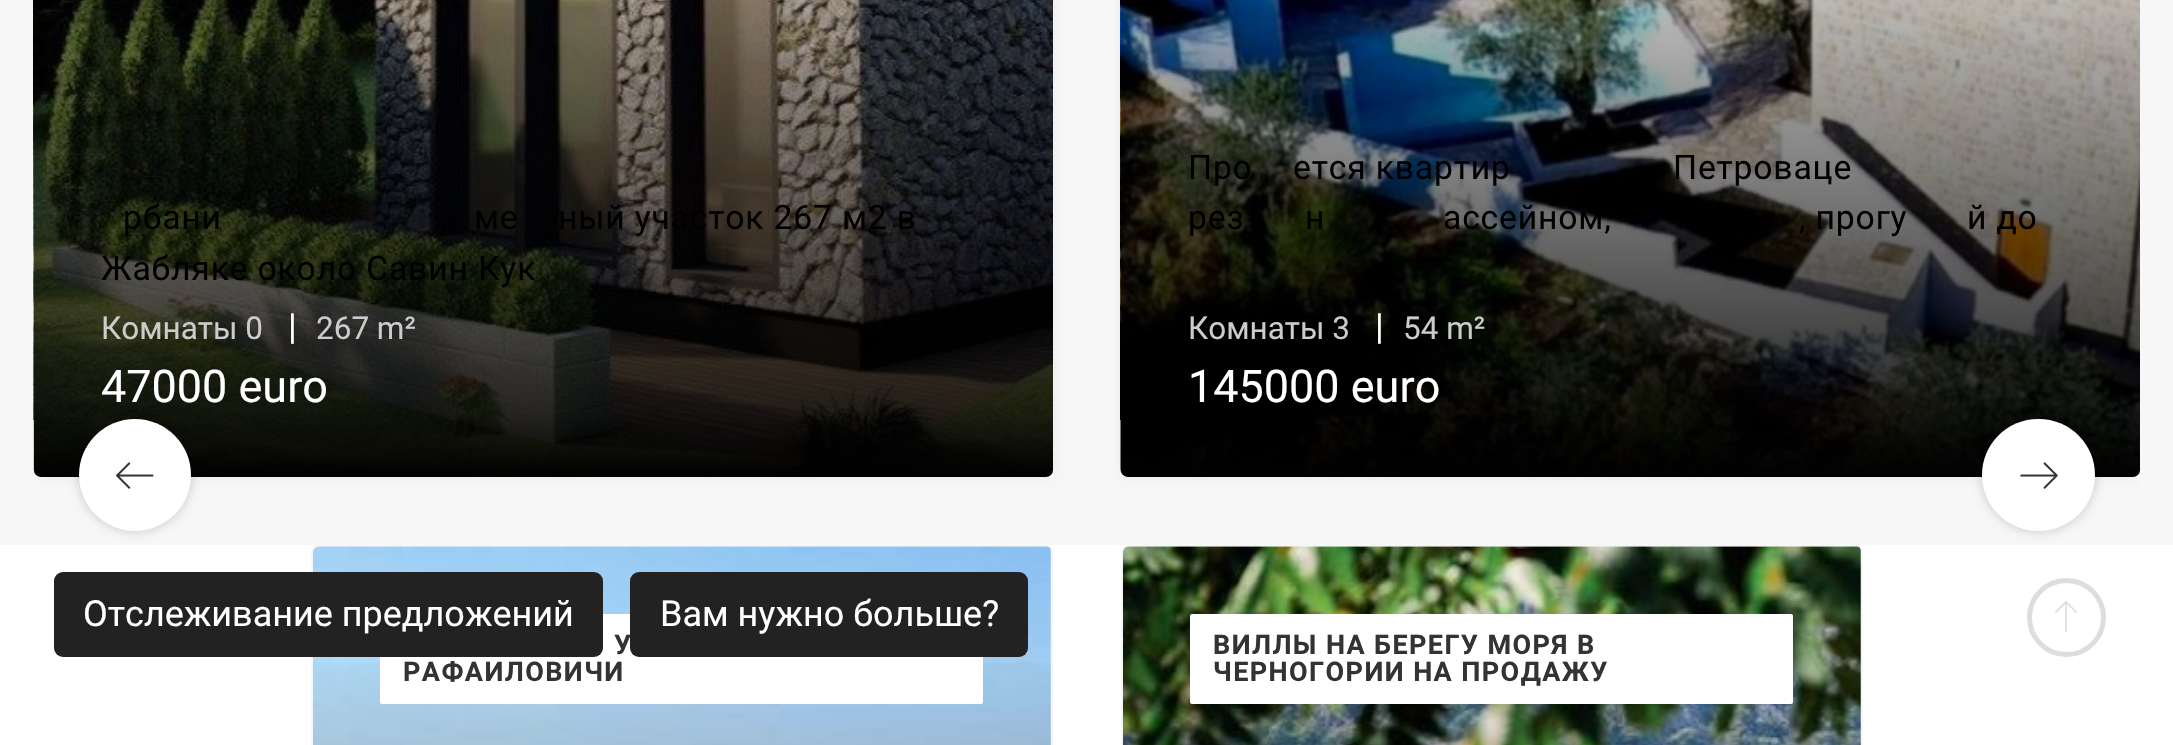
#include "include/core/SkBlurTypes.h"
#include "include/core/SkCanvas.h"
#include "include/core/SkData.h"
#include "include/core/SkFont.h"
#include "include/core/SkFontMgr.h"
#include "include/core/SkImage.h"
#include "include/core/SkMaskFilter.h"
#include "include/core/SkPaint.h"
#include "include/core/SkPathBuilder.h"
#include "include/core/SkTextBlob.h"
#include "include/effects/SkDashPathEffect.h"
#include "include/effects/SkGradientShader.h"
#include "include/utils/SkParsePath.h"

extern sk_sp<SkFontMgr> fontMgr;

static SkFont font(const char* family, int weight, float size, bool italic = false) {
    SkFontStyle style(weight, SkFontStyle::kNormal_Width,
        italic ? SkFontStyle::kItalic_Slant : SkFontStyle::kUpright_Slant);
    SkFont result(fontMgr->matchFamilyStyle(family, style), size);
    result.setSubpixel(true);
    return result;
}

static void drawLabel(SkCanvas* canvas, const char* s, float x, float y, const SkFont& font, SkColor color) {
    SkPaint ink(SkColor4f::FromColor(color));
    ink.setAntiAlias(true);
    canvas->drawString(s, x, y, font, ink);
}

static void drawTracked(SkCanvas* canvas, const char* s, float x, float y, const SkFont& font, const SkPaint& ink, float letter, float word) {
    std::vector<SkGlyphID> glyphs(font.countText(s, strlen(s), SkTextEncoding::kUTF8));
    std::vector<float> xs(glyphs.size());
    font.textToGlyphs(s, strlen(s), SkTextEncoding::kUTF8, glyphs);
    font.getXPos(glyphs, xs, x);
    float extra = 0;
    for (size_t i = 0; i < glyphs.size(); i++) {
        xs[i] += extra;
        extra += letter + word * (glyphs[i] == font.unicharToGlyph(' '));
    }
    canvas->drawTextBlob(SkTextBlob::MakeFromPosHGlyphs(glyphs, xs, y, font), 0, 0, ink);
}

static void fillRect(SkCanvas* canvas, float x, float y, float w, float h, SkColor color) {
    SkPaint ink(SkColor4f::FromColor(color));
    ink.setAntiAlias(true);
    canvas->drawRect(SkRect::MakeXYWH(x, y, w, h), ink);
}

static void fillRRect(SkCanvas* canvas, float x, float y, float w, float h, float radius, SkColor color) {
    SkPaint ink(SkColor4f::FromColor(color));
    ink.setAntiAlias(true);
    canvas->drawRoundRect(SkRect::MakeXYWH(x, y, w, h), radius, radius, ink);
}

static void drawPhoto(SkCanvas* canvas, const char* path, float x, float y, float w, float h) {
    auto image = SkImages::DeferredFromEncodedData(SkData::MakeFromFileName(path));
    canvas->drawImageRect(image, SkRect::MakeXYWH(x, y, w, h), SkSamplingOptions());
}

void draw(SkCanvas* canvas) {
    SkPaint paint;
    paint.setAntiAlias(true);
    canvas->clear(0xFFFFFFFF);
    fillRect(canvas, 0, 0, 2173, 545, 0xFFF7F7F7);
    canvas->save();
    canvas->clipRect(SkRect::MakeXYWH(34, 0, 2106, 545));
    paint.setColor(0x0D000000);
    paint.setMaskFilter(SkMaskFilter::MakeBlur(kNormal_SkBlurStyle, 5.5f));
    canvas->drawRoundRect(SkRect::MakeXYWH(34, -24, 1019, 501), 7, 7, paint);
    paint.setMaskFilter(nullptr);
    canvas->restore();
    fillRect(canvas, 34, 470, 1019, 7, 0xFFFFFFFF);
    drawPhoto(canvas, "assets/img1.png", 33, 0, 1020, 476);
    {
        const SkColor colors[] = {0xFF000000, 0xD4000000, 0x00000000, 0x00000000};
        const float stops[] = {0, 0.05f, 0.5f, 1};
        const SkPoint ends[] = {{543, 477}, {543, -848}};
        paint.setShader(SkGradientShader::MakeLinear(ends, colors, stops, 4, SkTileMode::kClamp));
        paint.setAlpha(255);
    }
    canvas->drawRoundRect(SkRect::MakeXYWH(34, -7, 1019, 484), 7, 7, paint);
    SkFont font1 = font("Roboto", 400, 33.75f);
    paint.setShader(nullptr);
    paint.setColor(0xFF000000);
    drawTracked(canvas, "рбани", 123, 229, font1, paint, 0.8f, 0);
    drawTracked(canvas, "ме", 474, 229, font1, paint, 0.8f, 0);
    drawTracked(canvas, "ный участок 267 м2 в", 558, 229, font1, paint, 0.8f, 0);
    drawTracked(canvas, "Жабляке около Савин Кук", 101, 280, font1, paint, 0.8f, 0);
    SkFont font2 = font("Roboto", 400, 31.5f);
    drawLabel(canvas, "Комнаты 0", 101, 339, font2, 0xFFCCCCCC);
    SkFont font3 = font("Roboto", 400, 36);
    drawLabel(canvas, "|", 288, 339, font3, 0xFFFFFFFF);
    drawLabel(canvas, "267 m²", 316, 339, font2, 0xFFCCCCCC);
    SkFont font4 = font("Roboto", 400, 45);
    drawLabel(canvas, "47000 euro", 101, 402, font4, 0xFFFFFFFF);
    canvas->save();
    canvas->clipRect(SkRect::MakeXYWH(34, 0, 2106, 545));
    paint.setColor(0x0D000000);
    paint.setMaskFilter(SkMaskFilter::MakeBlur(kNormal_SkBlurStyle, 5.5f));
    canvas->drawRoundRect(SkRect::MakeXYWH(1121, -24, 1019, 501), 7, 7, paint);
    paint.setMaskFilter(nullptr);
    canvas->restore();
    fillRect(canvas, 1121, 420, 1019, 57, 0xFFFFFFFF);
    drawPhoto(canvas, "assets/img2.png", 1120, 0, 1020, 476);
    {
        const SkColor colors[] = {0xFF000000, 0xD4000000, 0x00000000, 0x00000000};
        const float stops[] = {0, 0.05f, 0.5f, 1};
        const SkPoint ends[] = {{1630, 477}, {1630, -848}};
        paint.setShader(SkGradientShader::MakeLinear(ends, colors, stops, 4, SkTileMode::kClamp));
        paint.setAlpha(255);
    }
    canvas->drawRoundRect(SkRect::MakeXYWH(1121, -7, 1019, 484), 7, 7, paint);
    paint.setShader(nullptr);
    paint.setColor(0xFF000000);
    drawTracked(canvas, "Про", 1188, 179, font1, paint, 0.8f, 0);
    drawTracked(canvas, "ется квартир", 1293, 179, font1, paint, 0.8f, 0);
    drawTracked(canvas, "Петроваце", 1673, 179, font1, paint, 0.8f, 0);
    drawTracked(canvas, "рез", 1188, 229, font1, paint, 0.8f, 0);
    drawTracked(canvas, "н", 1305, 229, font1, paint, 0.8f, 0);
    drawTracked(canvas, "ассейном,", 1443, 229, font1, paint, 0.8f, 0);
    drawTracked(canvas, ", прогу", 1799, 229, font1, paint, 0.8f, 0);
    drawTracked(canvas, "й до", 1967, 229, font1, paint, 0.8f, 0);
    drawLabel(canvas, "Комнаты 3", 1188, 339, font2, 0xFFCCCCCC);
    drawLabel(canvas, "|", 1375, 339, font3, 0xFFFFFFFF);
    drawLabel(canvas, "54 m²", 1403, 339, font2, 0xFFCCCCCC);
    drawLabel(canvas, "145000 euro", 1188, 402, font4, 0xFFFFFFFF);
    paint.setColor(0x33000000);
    paint.setMaskFilter(SkMaskFilter::MakeBlur(kNormal_SkBlurStyle, 5.5f));
    canvas->drawRoundRect(SkRect::MakeXYWH(79, 419, 112, 112), 56, 56, paint);
    paint.setMaskFilter(nullptr);
    paint.setColor(0xFFFFFFFF);
    canvas->drawCircle(135, 475, 56, paint);
    drawPhoto(canvas, "assets/img3.png", 116, 462, 38, 27);
    paint.setColor(0x33000000);
    paint.setMaskFilter(SkMaskFilter::MakeBlur(kNormal_SkBlurStyle, 5.5f));
    canvas->drawRoundRect(SkRect::MakeXYWH(1982, 419, 113, 112), 56, 56, paint);
    paint.setMaskFilter(nullptr);
    fillRRect(canvas, 1982, 419, 113, 112, 56, 0xFFFFFFFF);
    drawPhoto(canvas, "assets/img4.png", 2020, 462, 38, 27);
    paint.setStroke(true);
    paint.setStrokeWidth(2);
    paint.setColor(0xFFF5F6F7);
    canvas->drawRoundRect(SkRect::MakeXYWH(312, 546, 740, 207), 6, 6, paint);
    drawPhoto(canvas, "assets/img6.png", 313, 546, 738, 199);
    paint.setStroke(false);
    {
        const SkColor colors[] = {0xD9000000, 0x40000000, 0x00000000, 0x00000000};
        const float stops[] = {0, 0.35f, 0.8f, 1};
        const SkPoint ends[] = {{682, 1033}, {682, 547}};
        paint.setShader(SkGradientShader::MakeLinear(ends, colors, stops, 4, SkTileMode::kClamp));
        paint.setAlpha(255);
    }
    canvas->drawRect(SkRect::MakeXYWH(313, 663, 738, 82), paint);
    fillRRect(canvas, 380, 614, 603, 90, 2, 0xFFFFFFFF);
    fillRRect(canvas, 54, 572, 549, 85, 9, 0xFF222222);
    drawLabel(canvas, "Отслеживание предложений", 83, 626, font3, 0xFFFFFFFF);
    SkFont font5 = font("Roboto", 700, 27);
    paint.setShader(nullptr);
    paint.setColor(0xFF333333);
    drawTracked(canvas, "У", 614, 654, font5, paint, 1.4f, 0);
    fillRRect(canvas, 630, 572, 398, 85, 9, 0xFF222222);
    drawLabel(canvas, "Вам нужно больше?", 660, 626, font3, 0xFFFFFFFF);
    paint.setStroke(true);
    paint.setStrokeWidth(5);
    paint.setColor(0xFFDDDDDD);
    canvas->drawCircle(2066.5f, 617.5f, 37, paint);
    drawPhoto(canvas, "assets/img5.png", 2055, 601, 22, 31);
    paint.setStroke(false);
    paint.setColor(0xFF333333);
    drawTracked(canvas, "РАФАИЛОВИЧИ", 403, 681, font5, paint, 1.4f, 0);
    paint.setStroke(true);
    paint.setStrokeWidth(2);
    paint.setColor(0xFFF5F6F7);
    canvas->drawRoundRect(SkRect::MakeXYWH(1122, 546, 740, 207), 6, 6, paint);
    drawPhoto(canvas, "assets/img7.png", 1123, 546, 738, 199);
    paint.setStroke(false);
    {
        const SkColor colors[] = {0xD9000000, 0x40000000, 0x00000000, 0x00000000};
        const float stops[] = {0, 0.35f, 0.8f, 1};
        const SkPoint ends[] = {{1492, 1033}, {1492, 547}};
        paint.setShader(SkGradientShader::MakeLinear(ends, colors, stops, 4, SkTileMode::kClamp));
        paint.setAlpha(255);
    }
    canvas->drawRect(SkRect::MakeXYWH(1123, 663, 738, 82), paint);
    fillRRect(canvas, 1190, 614, 603, 90, 2, 0xFFFFFFFF);
    paint.setShader(nullptr);
    paint.setColor(0xFF333333);
    drawTracked(canvas, "ВИЛЛЫ НА БЕРЕГУ МОРЯ В", 1213, 654, font5, paint, 1.4f, 0);
    drawTracked(canvas, "ЧЕРНОГОРИИ НА ПРОДАЖУ", 1213, 681, font5, paint, 1.4f, 0);
}
